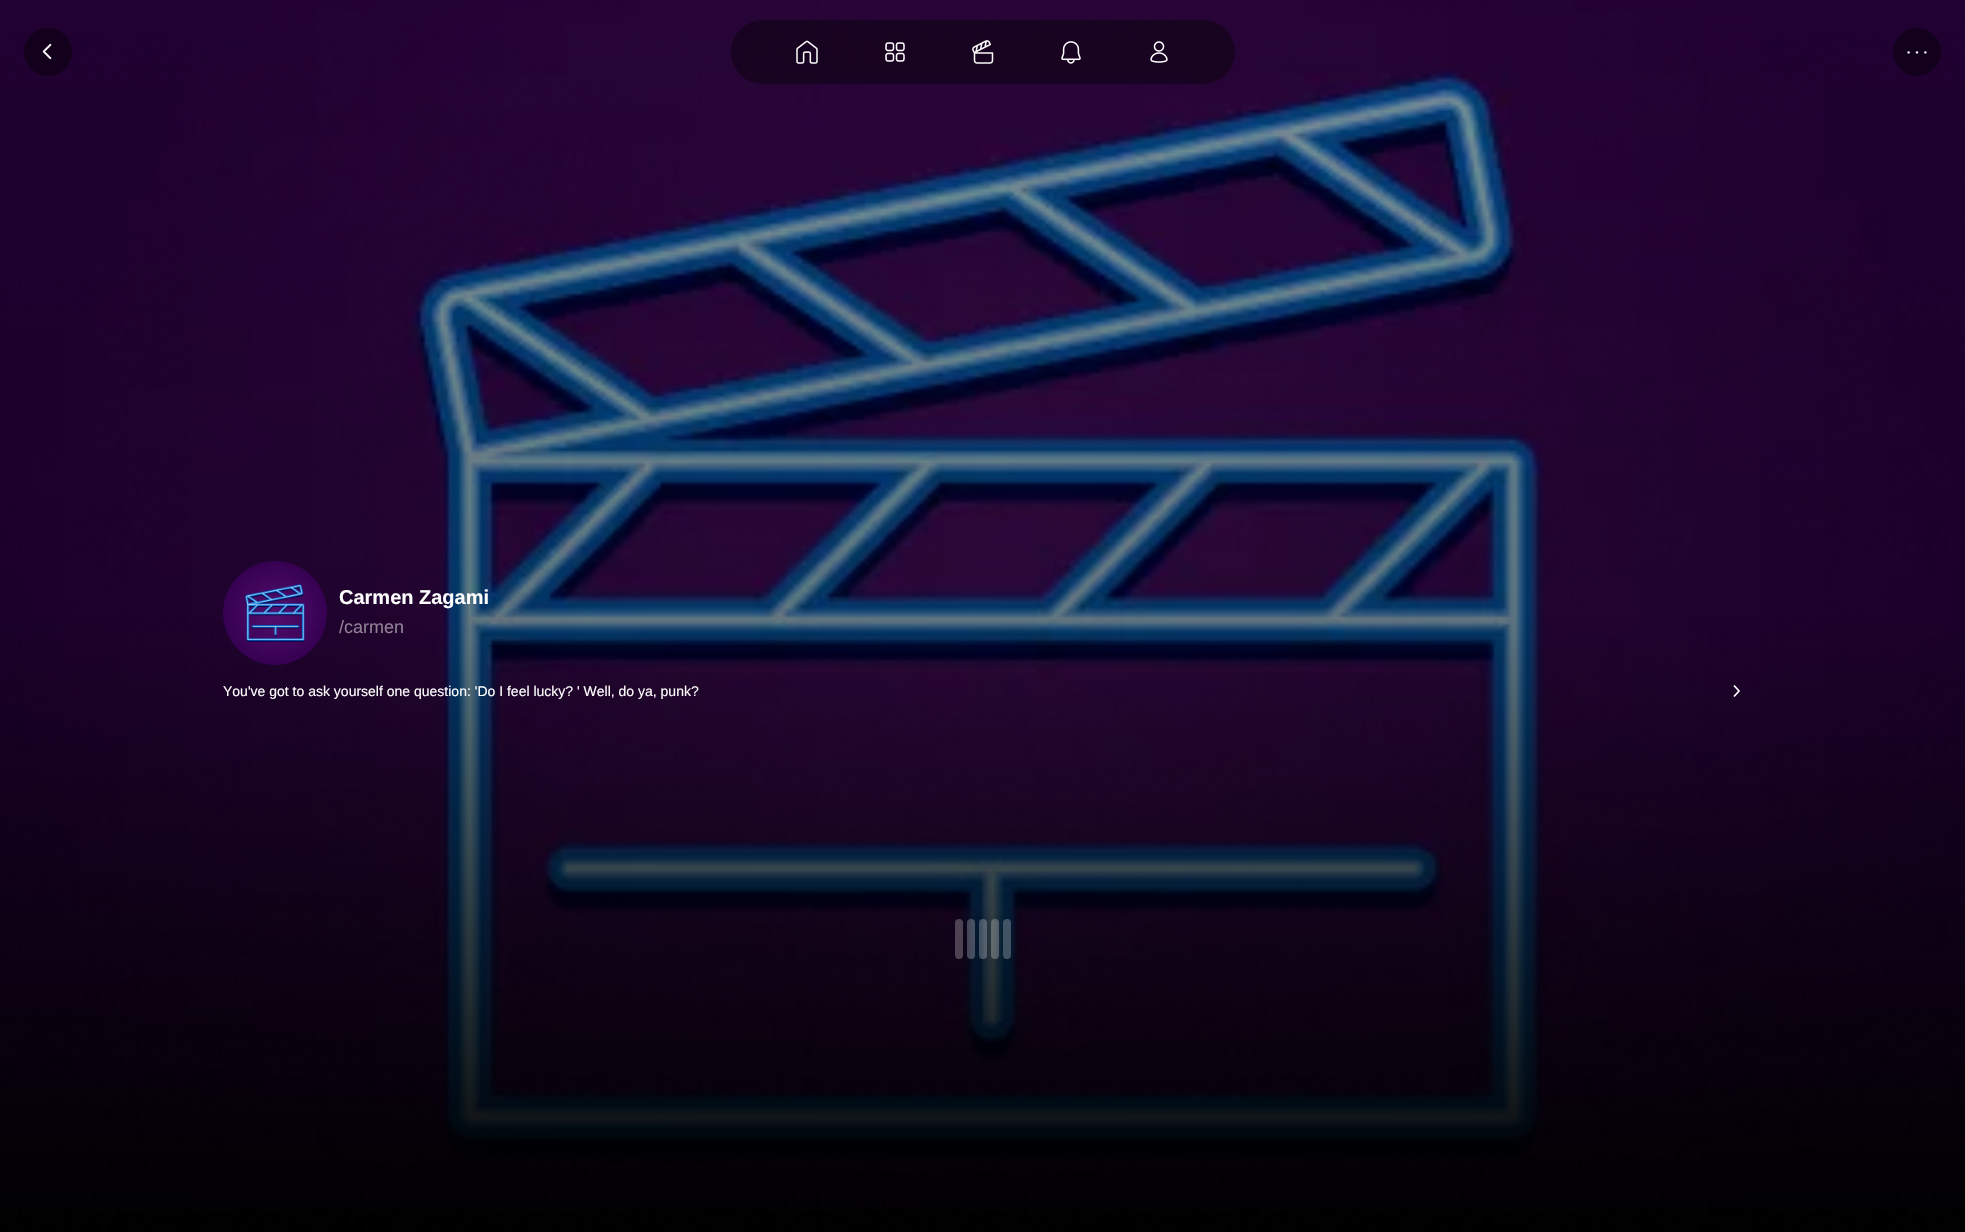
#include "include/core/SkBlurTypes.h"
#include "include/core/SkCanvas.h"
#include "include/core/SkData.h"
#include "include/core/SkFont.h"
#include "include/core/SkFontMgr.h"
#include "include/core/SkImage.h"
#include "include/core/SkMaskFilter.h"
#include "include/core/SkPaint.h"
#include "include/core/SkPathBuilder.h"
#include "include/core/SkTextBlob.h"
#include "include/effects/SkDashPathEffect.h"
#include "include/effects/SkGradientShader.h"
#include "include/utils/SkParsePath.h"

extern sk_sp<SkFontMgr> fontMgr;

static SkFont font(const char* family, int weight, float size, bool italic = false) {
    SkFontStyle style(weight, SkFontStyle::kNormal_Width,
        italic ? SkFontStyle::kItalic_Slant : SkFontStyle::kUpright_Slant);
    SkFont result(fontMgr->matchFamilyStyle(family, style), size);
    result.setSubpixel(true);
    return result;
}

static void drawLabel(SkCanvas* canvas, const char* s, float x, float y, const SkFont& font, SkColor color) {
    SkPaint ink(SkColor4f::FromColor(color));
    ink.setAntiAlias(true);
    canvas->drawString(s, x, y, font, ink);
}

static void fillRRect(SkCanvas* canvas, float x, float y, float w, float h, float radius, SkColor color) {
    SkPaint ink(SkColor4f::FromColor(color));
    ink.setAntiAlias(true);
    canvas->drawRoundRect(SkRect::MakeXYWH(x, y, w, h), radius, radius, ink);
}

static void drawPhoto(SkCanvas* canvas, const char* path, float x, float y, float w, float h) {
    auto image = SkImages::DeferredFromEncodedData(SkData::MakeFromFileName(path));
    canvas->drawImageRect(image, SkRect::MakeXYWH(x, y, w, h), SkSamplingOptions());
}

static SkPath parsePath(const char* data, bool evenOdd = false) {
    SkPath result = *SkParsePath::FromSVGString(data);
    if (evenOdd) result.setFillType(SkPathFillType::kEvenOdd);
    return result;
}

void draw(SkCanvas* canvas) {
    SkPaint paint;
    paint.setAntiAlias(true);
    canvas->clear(0xFFFFFFFF);
    drawPhoto(canvas, "assets/img6.png", 0, 0, 1965, 1232);
    fillRRect(canvas, 731, 20, 504, 64, 32, 0x66000000);
    drawPhoto(canvas, "assets/img1.png", 796, 40, 22, 24);
    drawPhoto(canvas, "assets/img2.png", 885, 42, 20, 20);
    drawPhoto(canvas, "assets/img3.png", 972, 40, 22, 24);
    drawPhoto(canvas, "assets/img4.png", 1061, 41, 20, 23);
    drawPhoto(canvas, "assets/img5.png", 1150, 41, 18, 22);
    paint.setColor(0xFF13001D);
    canvas->drawCircle(48, 52, 24, paint);
    drawPhoto(canvas, "assets/img7.png", 42, 43, 10, 17);
    paint.setColor(0xFF12001D);
    canvas->drawCircle(1917, 52, 24, paint);
    paint.setColor(0xFFFFFFFF);
    canvas->drawCircle(1908.6f, 52.4f, 1.2f, paint);
    canvas->drawCircle(1917, 52.4f, 1.2f, paint);
    canvas->drawCircle(1925.4f, 52.4f, 1.2f, paint);
    drawPhoto(canvas, "assets/img8.png", 223, 561, 104, 104);
    SkFont font1 = font("Liberation Sans", 700, 20);
    drawLabel(canvas, "Carmen Zagami", 339, 604, font1, 0xFFFFFFFF);
    SkFont font2 = font("Liberation Sans", 400, 18);
    drawLabel(canvas, "/carmen", 339, 633, font2, 0xFF8F8196);
    SkFont font3 = font("Liberation Sans", 400, 14);
    drawLabel(canvas, "You've got to ask yourself one question: 'Do I feel lucky? ' Well, do ya, punk?", 223, 696, font3, 0xFFFFFFFF);
    paint.setStroke(true);
    paint.setStrokeWidth(1.7f);
    canvas->drawPath(parsePath("M1734 685.5L1739 691L1734 696.5"), paint);
    fillRRect(canvas, 955, 919, 8, 40, 4, 0x40FFFFFF);
    fillRRect(canvas, 967, 919, 8, 40, 4, 0x40FFFFFF);
    fillRRect(canvas, 979, 919, 8, 40, 4, 0x40FFFFFF);
    fillRRect(canvas, 991, 919, 8, 40, 4, 0x40FFFFFF);
    fillRRect(canvas, 1003, 919, 8, 40, 4, 0x40FFFFFF);
}
